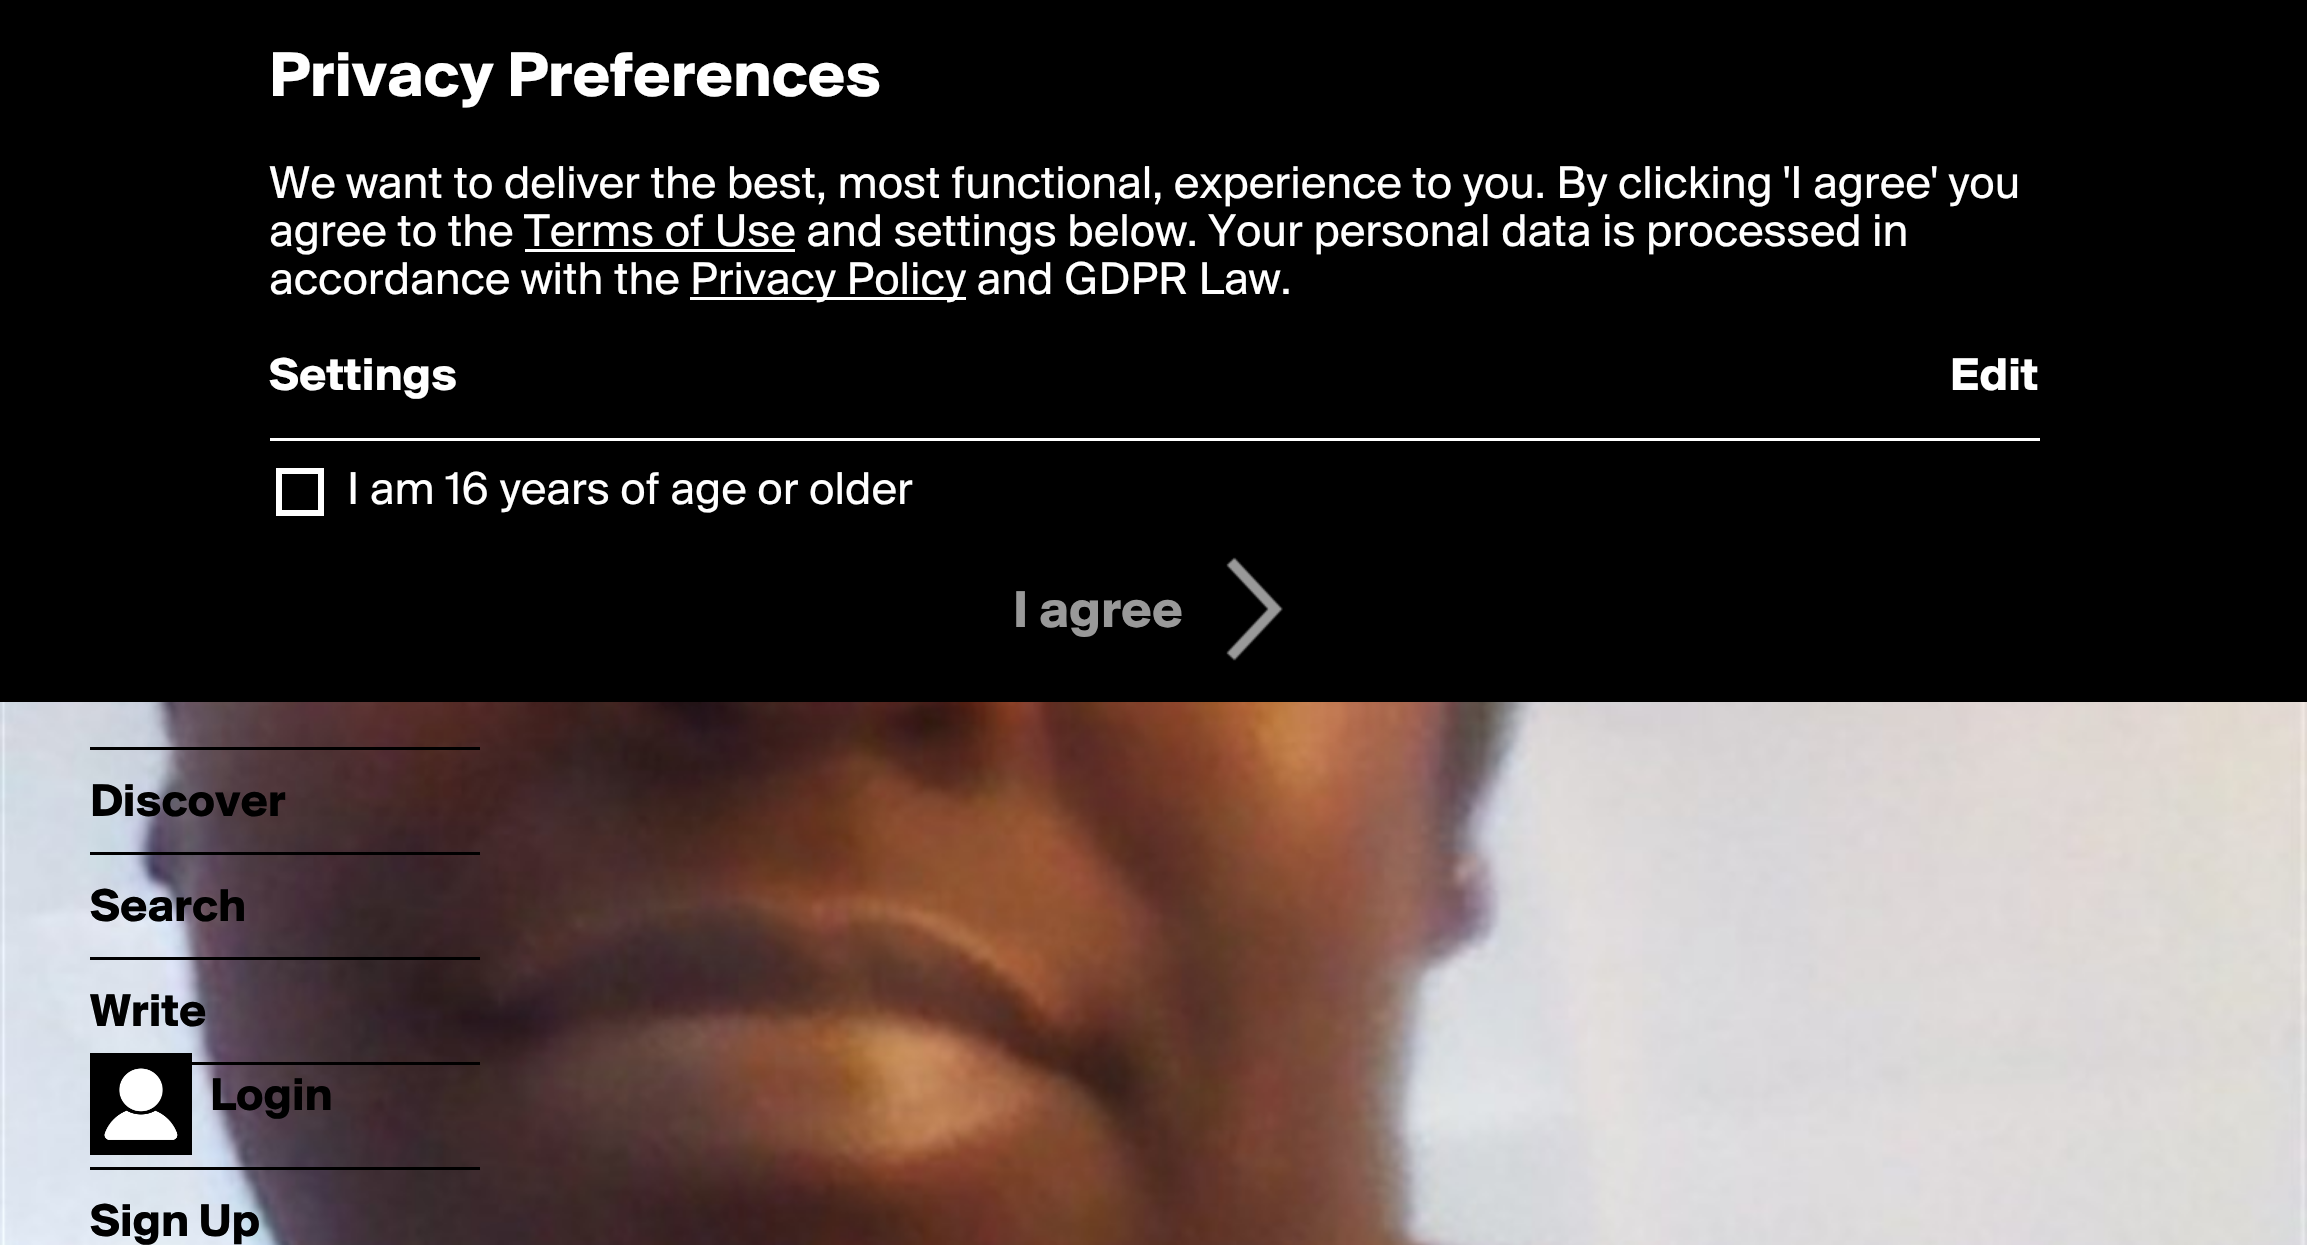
#include "include/core/SkBlurTypes.h"
#include "include/core/SkCanvas.h"
#include "include/core/SkData.h"
#include "include/core/SkFont.h"
#include "include/core/SkFontMgr.h"
#include "include/core/SkImage.h"
#include "include/core/SkMaskFilter.h"
#include "include/core/SkPaint.h"
#include "include/core/SkPathBuilder.h"
#include "include/core/SkTextBlob.h"
#include "include/effects/SkDashPathEffect.h"
#include "include/effects/SkGradientShader.h"
#include "include/utils/SkParsePath.h"

extern sk_sp<SkFontMgr> fontMgr;

static SkFont font(const char* family, int weight, float size, bool italic = false) {
    SkFontStyle style(weight, SkFontStyle::kNormal_Width,
        italic ? SkFontStyle::kItalic_Slant : SkFontStyle::kUpright_Slant);
    SkFont result(fontMgr->matchFamilyStyle(family, style), size);
    result.setSubpixel(true);
    return result;
}

static void drawLabel(SkCanvas* canvas, const char* s, float x, float y, const SkFont& font, SkColor color) {
    SkPaint ink(SkColor4f::FromColor(color));
    ink.setAntiAlias(true);
    canvas->drawString(s, x, y, font, ink);
}

static void fillRect(SkCanvas* canvas, float x, float y, float w, float h, SkColor color) {
    SkPaint ink(SkColor4f::FromColor(color));
    ink.setAntiAlias(true);
    canvas->drawRect(SkRect::MakeXYWH(x, y, w, h), ink);
}

static void drawPhoto(SkCanvas* canvas, const char* path, float x, float y, float w, float h) {
    auto image = SkImages::DeferredFromEncodedData(SkData::MakeFromFileName(path));
    canvas->drawImageRect(image, SkRect::MakeXYWH(x, y, w, h), SkSamplingOptions());
}

void draw(SkCanvas* canvas) {
    SkPaint paint;
    paint.setAntiAlias(true);
    canvas->clear(0xFFFFFFFF);
    fillRect(canvas, 0, 0, 2307, 702, 0xFF000000);
    SkFont font1 = font("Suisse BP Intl", 700, 66);
    drawLabel(canvas, "Privacy Preferences", 269, 96, font1, 0xFFFFFFFF);
    SkFont font2 = font("Suisse BP Intl", 400, 48);
    drawLabel(canvas, "We want to deliver the best, most functional, experience to you. By clicking 'I agree' you", 269, 198, font2, 0xFFFFFFFF);
    drawLabel(canvas, "agree to the Terms of Use and settings below. Your personal data is processed in", 269, 246, font2, 0xFFFFFFFF);
    fillRect(canvas, 525, 249, 270, 3, 0xFFFFFFFF);
    drawLabel(canvas, "accordance with the", 269, 294, font2, 0xFFFFFFFF);
    fillRect(canvas, 690, 297, 276, 3, 0xFFFFFFFF);
    drawLabel(canvas, "Privacy Policy and GDPR Law.", 690, 294, font2, 0xFFFFFFFF);
    SkFont font3 = font("Suisse BP Intl", 700, 48);
    drawLabel(canvas, "Settings", 269, 390, font3, 0xFFFFFFFF);
    drawLabel(canvas, "Edit", 1950, 390, font3, 0xFFFFFFFF);
    fillRect(canvas, 270, 438, 1770, 3, 0xFFFFFFFF);
    paint.setStroke(true);
    paint.setStrokeWidth(6);
    paint.setColor(0xFFFFFFFF);
    canvas->drawRect(SkRect::MakeXYWH(279, 471, 42, 42), paint);
    drawLabel(canvas, "I am 16 years of age or older", 347, 504, font2, 0xFFFFFFFF);
    SkFont font4 = font("Suisse BP Intl", 700, 54);
    drawLabel(canvas, "I agree", 1013, 627, font4, 0xFF999999);
    drawPhoto(canvas, "assets/img1.png", 1226, 557, 57, 104);
    drawPhoto(canvas, "assets/img2.png", 0, 702, 2307, 543);
    fillRect(canvas, 90, 747, 390, 3, 0xFF000000);
    fillRect(canvas, 90, 852, 390, 3, 0xFF000000);
    drawLabel(canvas, "Discover", 90, 816, font3, 0xFF000000);
    fillRect(canvas, 90, 957, 390, 3, 0xFF000000);
    drawLabel(canvas, "Search", 90, 921, font3, 0xFF000000);
    fillRect(canvas, 192, 1062, 288, 3, 0xFF000000);
    drawLabel(canvas, "Write", 90, 1026, font3, 0xFF000000);
    fillRect(canvas, 90, 1167, 390, 3, 0xFF000000);
    drawLabel(canvas, "Sign Up", 90, 1236, font3, 0xFF000000);
    drawPhoto(canvas, "assets/img3.png", 90, 1053, 102, 102);
    drawLabel(canvas, "Login", 210, 1110, font3, 0xFF000000);
}
